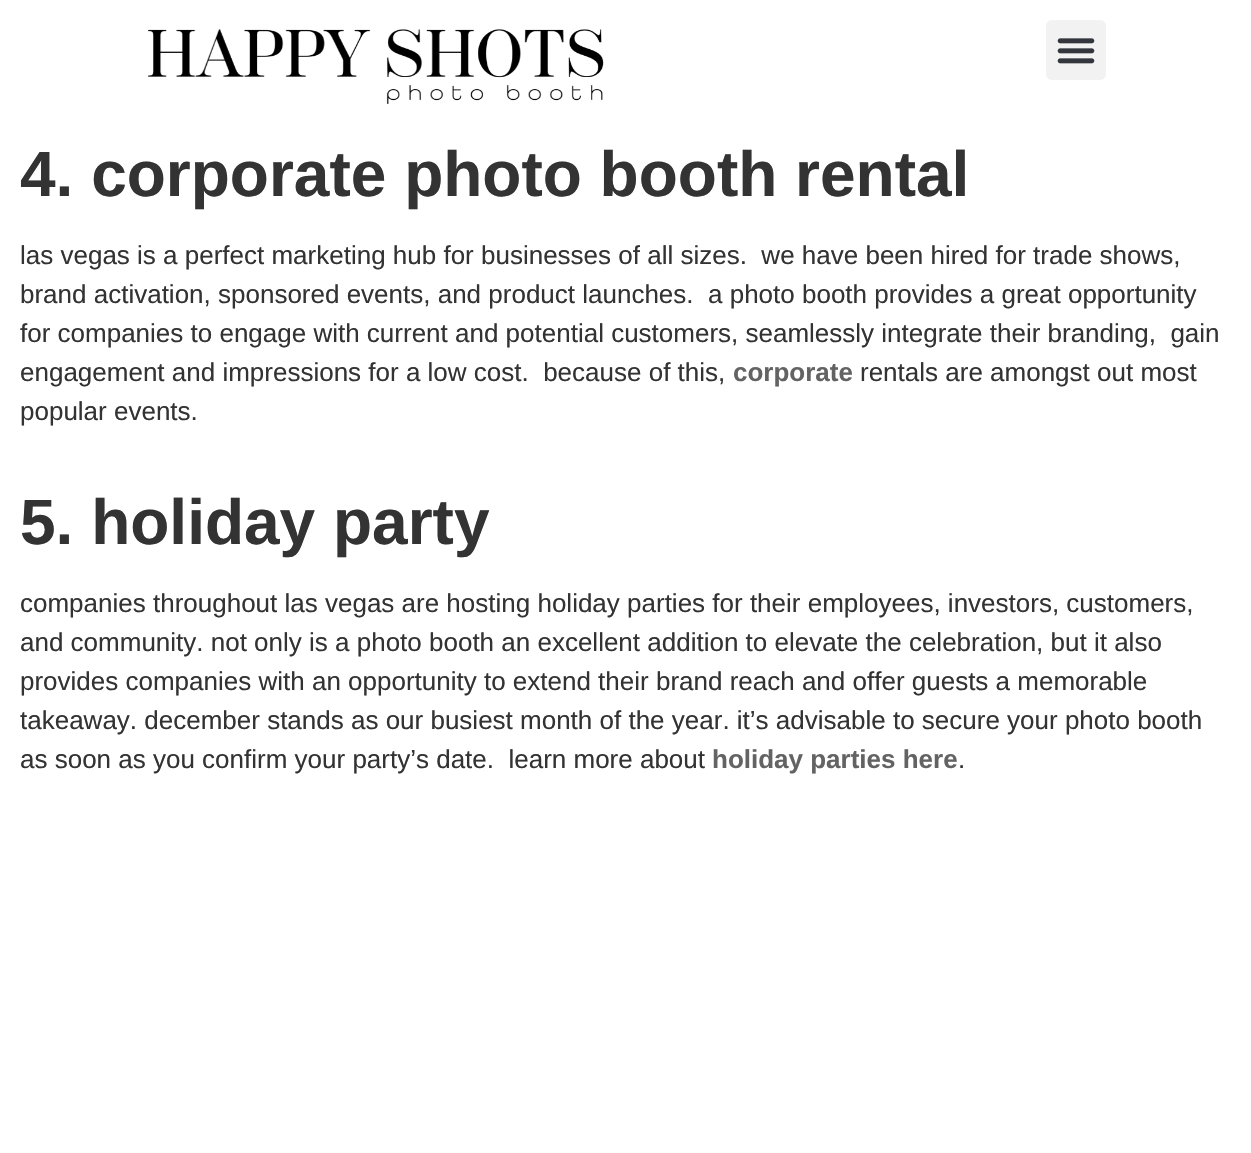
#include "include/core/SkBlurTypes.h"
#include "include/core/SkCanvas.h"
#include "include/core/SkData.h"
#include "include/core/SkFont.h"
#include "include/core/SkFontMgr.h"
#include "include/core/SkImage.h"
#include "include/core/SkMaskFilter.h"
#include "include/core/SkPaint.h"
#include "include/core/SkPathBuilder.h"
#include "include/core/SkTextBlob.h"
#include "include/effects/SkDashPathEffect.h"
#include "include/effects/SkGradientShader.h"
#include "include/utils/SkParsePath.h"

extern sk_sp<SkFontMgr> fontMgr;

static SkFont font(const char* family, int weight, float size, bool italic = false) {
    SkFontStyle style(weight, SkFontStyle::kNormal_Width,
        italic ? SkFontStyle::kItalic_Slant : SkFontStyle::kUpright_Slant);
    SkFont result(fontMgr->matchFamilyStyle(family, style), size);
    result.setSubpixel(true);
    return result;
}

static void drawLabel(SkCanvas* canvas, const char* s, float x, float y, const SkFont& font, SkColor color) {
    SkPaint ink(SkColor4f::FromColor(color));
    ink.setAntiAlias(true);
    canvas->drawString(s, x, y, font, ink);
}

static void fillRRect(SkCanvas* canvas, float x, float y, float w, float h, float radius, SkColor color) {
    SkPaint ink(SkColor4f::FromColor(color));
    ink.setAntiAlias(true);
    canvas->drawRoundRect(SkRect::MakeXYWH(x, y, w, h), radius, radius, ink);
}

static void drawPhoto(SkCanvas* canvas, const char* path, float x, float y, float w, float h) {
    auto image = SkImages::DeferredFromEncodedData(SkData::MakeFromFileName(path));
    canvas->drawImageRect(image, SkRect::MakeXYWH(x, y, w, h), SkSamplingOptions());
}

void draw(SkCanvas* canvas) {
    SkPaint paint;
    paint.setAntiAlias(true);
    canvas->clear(0xFFFFFFFF);
    drawPhoto(canvas, "assets/img1.png", 148, 29, 456, 75);
    fillRRect(canvas, 1046, 20, 60, 60, 6, 0xFFF2F2F2);
    drawPhoto(canvas, "assets/img2.png", 1057, 38, 38, 26);
    SkFont font1 = font("Liberation Sans", 700, 64);
    drawLabel(canvas, "4. corporate photo booth rental", 20, 196, font1, 0xFF333333);
    SkFont font2 = font("Liberation Sans", 400, 26);
    drawLabel(canvas, "las vegas is a perfect marketing hub for businesses of all sizes.  we have been hired for trade shows,", 20, 264, font2, 0xFF333333);
    drawLabel(canvas, "brand activation, sponsored events, and product launches.  a photo booth provides a great opportunity", 20, 303, font2, 0xFF333333);
    drawLabel(canvas, "for companies to engage with current and potential customers, seamlessly integrate their branding,  gain", 20, 342, font2, 0xFF333333);
    drawLabel(canvas, "engagement and impressions for a low cost.  because of this,", 20, 381, font2, 0xFF333333);
    SkFont font3 = font("Liberation Sans", 700, 26);
    drawLabel(canvas, "corporate", 733, 381, font3, 0xFF636363);
    drawLabel(canvas, "rentals are amongst out most", 860, 381, font2, 0xFF333333);
    drawLabel(canvas, "popular events.", 20, 420, font2, 0xFF333333);
    drawLabel(canvas, "5. holiday party", 20, 544, font1, 0xFF333333);
    drawLabel(canvas, "companies throughout las vegas are hosting holiday parties for their employees, investors, customers,", 20, 612, font2, 0xFF333333);
    drawLabel(canvas, "and community. not only is a photo booth an excellent addition to elevate the celebration, but it also", 20, 651, font2, 0xFF333333);
    drawLabel(canvas, "provides companies with an opportunity to extend their brand reach and offer guests a memorable", 20, 690, font2, 0xFF333333);
    drawLabel(canvas, "takeaway. december stands as our busiest month of the year. it’s advisable to secure your photo booth", 20, 729, font2, 0xFF333333);
    drawLabel(canvas, "as soon as you confirm your party’s date.  learn more about", 20, 768, font2, 0xFF333333);
    drawLabel(canvas, "holiday parties here", 712, 768, font3, 0xFF636363);
    drawLabel(canvas, ".", 958, 768, font2, 0xFF333333);
}
